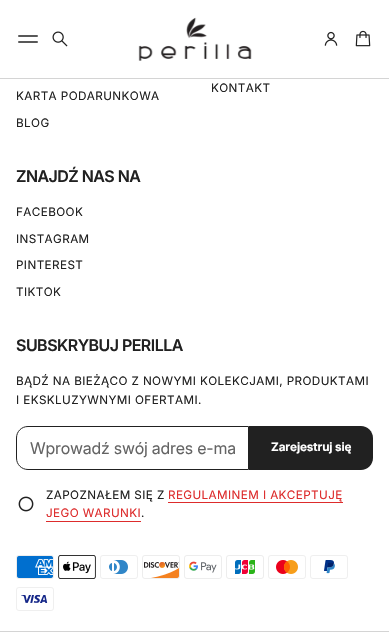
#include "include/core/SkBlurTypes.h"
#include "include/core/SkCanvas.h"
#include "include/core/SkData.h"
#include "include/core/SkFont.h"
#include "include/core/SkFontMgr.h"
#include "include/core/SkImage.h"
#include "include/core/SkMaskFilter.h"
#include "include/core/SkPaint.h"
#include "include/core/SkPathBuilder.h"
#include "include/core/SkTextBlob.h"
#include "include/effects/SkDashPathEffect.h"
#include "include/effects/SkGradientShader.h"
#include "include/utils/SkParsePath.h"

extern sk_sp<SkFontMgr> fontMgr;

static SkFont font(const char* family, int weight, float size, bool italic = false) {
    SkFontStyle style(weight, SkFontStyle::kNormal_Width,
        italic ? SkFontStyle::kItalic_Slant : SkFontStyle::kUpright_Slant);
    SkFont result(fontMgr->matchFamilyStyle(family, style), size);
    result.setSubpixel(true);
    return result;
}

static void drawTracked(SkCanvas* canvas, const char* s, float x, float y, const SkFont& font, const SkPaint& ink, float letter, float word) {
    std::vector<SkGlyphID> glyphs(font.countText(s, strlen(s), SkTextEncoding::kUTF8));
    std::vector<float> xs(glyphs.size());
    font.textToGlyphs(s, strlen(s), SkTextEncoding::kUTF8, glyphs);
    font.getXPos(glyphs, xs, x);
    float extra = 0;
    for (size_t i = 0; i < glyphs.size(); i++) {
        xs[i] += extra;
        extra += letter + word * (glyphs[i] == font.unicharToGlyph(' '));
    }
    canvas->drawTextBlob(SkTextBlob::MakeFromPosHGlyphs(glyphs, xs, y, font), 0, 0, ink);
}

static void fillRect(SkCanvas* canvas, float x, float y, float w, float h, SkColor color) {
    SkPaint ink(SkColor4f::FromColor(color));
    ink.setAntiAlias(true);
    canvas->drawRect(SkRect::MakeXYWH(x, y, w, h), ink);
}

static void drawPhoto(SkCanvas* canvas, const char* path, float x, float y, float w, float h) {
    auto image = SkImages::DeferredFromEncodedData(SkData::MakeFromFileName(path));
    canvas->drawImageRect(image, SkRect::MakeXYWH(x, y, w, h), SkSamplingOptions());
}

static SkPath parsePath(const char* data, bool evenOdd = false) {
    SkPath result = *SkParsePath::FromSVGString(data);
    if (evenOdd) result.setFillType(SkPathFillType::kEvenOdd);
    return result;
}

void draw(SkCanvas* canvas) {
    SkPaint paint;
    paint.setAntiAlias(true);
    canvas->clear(0xFFFFFFFF);
    fillRect(canvas, 0, 78, 389, 1, 0xFFD4D4D4);
    drawPhoto(canvas, "assets/img1.png", 18, 35, 20, 8);
    drawPhoto(canvas, "assets/img2.png", 52, 31, 16, 16);
    drawPhoto(canvas, "assets/img3.png", 138, 17, 114, 44);
    drawPhoto(canvas, "assets/img4.png", 324, 31, 14, 15);
    drawPhoto(canvas, "assets/img5.png", 355, 30, 16, 17);
    fillRect(canvas, 0, 631, 389, 1, 0xFFD4D4D4);
    SkFont font1 = font("Inter", 400, 11.7f);
    paint.setColor(0xFF212121);
    drawTracked(canvas, "KONTAKT", 211, 92, font1, paint, 0.4f, 0);
    drawTracked(canvas, "KARTA PODARUNKOWA", 16, 100, font1, paint, 0.4f, 0);
    drawTracked(canvas, "BLOG", 16, 127, font1, paint, 0.4f, 0);
    SkFont font2 = font("Inter", 600, 16);
    drawTracked(canvas, "ZNAJDŹ NAS NA", 16, 182, font2, paint, -0.5f, 0);
    drawTracked(canvas, "FACEBOOK", 16, 216, font1, paint, 0.4f, 0);
    drawTracked(canvas, "INSTAGRAM", 16, 243, font1, paint, 0.4f, 0);
    drawTracked(canvas, "PINTEREST", 16, 269, font1, paint, 0.4f, 0);
    drawTracked(canvas, "TIKTOK", 16, 296, font1, paint, 0.4f, 0);
    drawTracked(canvas, "SUBSKRYBUJ PERILLA", 16, 351, font2, paint, -0.5f, 0);
    drawTracked(canvas, "BĄDŹ NA BIEŻĄCO Z NOWYMI KOLEKCJAMI, PRODUKTAMI", 16, 385, font1, paint, 0.4f, 0);
    drawTracked(canvas, "I EKSKLUZYWNYMI OFERTAMI.", 16, 404, font1, paint, 0.4f, 0);
    paint.setStroke(true);
    paint.setStrokeWidth(1);
    canvas->drawPath(parsePath("M28 426.5H248.5V469.5H28C21.5 469.5 16.5 464.5 16.5 458V438C16.5 431.5 21.5 426.5 28 426.5Z"), paint);
    canvas->save();
    canvas->clipRect(SkRect::MakeXYWH(30, 438, 205, 20));
    SkFont font3 = font("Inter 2", 400, 16);
    paint.setStroke(false);
    paint.setColor(0xFF646464);
    drawTracked(canvas, "Wprowadź swój adres e-ma", 30, 454, font3, paint, -0.2f, 0);
    canvas->restore();
    paint.setColor(0xFF212121);
    canvas->drawPath(parsePath("M249 426H361C367.5 426 373 431.5 373 438V458C373 464.5 367.5 470 361 470H249Z"), paint);
    SkFont font4 = font("Inter", 700, 11.7f);
    paint.setColor(0xFFFFFFFF);
    drawTracked(canvas, "Zarejestruj się", 271, 451, font4, paint, -0.1f, 0);
    drawPhoto(canvas, "assets/img6.png", 18, 496, 16, 16);
    paint.setColor(0xFF212121);
    drawTracked(canvas, "ZAPOZNAŁEM SIĘ Z", 46, 499, font1, paint, 0.4f, 0);
    paint.setColor(0xFFDD2C2C);
    drawTracked(canvas, "REGULAMINEM I AKCEPTUJĘ", 168, 499, font1, paint, 0.4f, 0);
    fillRect(canvas, 168, 502, 175, 1, 0xFFDD2C2C);
    drawTracked(canvas, "JEGO WARUNKI", 46, 517, font1, paint, 0.4f, 0);
    fillRect(canvas, 46, 521, 95, 1, 0xFFDD2C2C);
    paint.setColor(0xFF212121);
    drawTracked(canvas, ".", 141, 517, font1, paint, 0.4f, 0);
    drawPhoto(canvas, "assets/img7.png", 16, 555, 38, 24);
    drawPhoto(canvas, "assets/img8.png", 58, 555, 38, 24);
    drawPhoto(canvas, "assets/img9.png", 100, 555, 38, 24);
    drawPhoto(canvas, "assets/img10.png", 142, 555, 38, 24);
    drawPhoto(canvas, "assets/img11.png", 184, 555, 38, 24);
    drawPhoto(canvas, "assets/img12.png", 226, 555, 38, 24);
    drawPhoto(canvas, "assets/img13.png", 268, 555, 38, 24);
    drawPhoto(canvas, "assets/img14.png", 310, 555, 38, 24);
    drawPhoto(canvas, "assets/img15.png", 16, 587, 38, 24);
}
